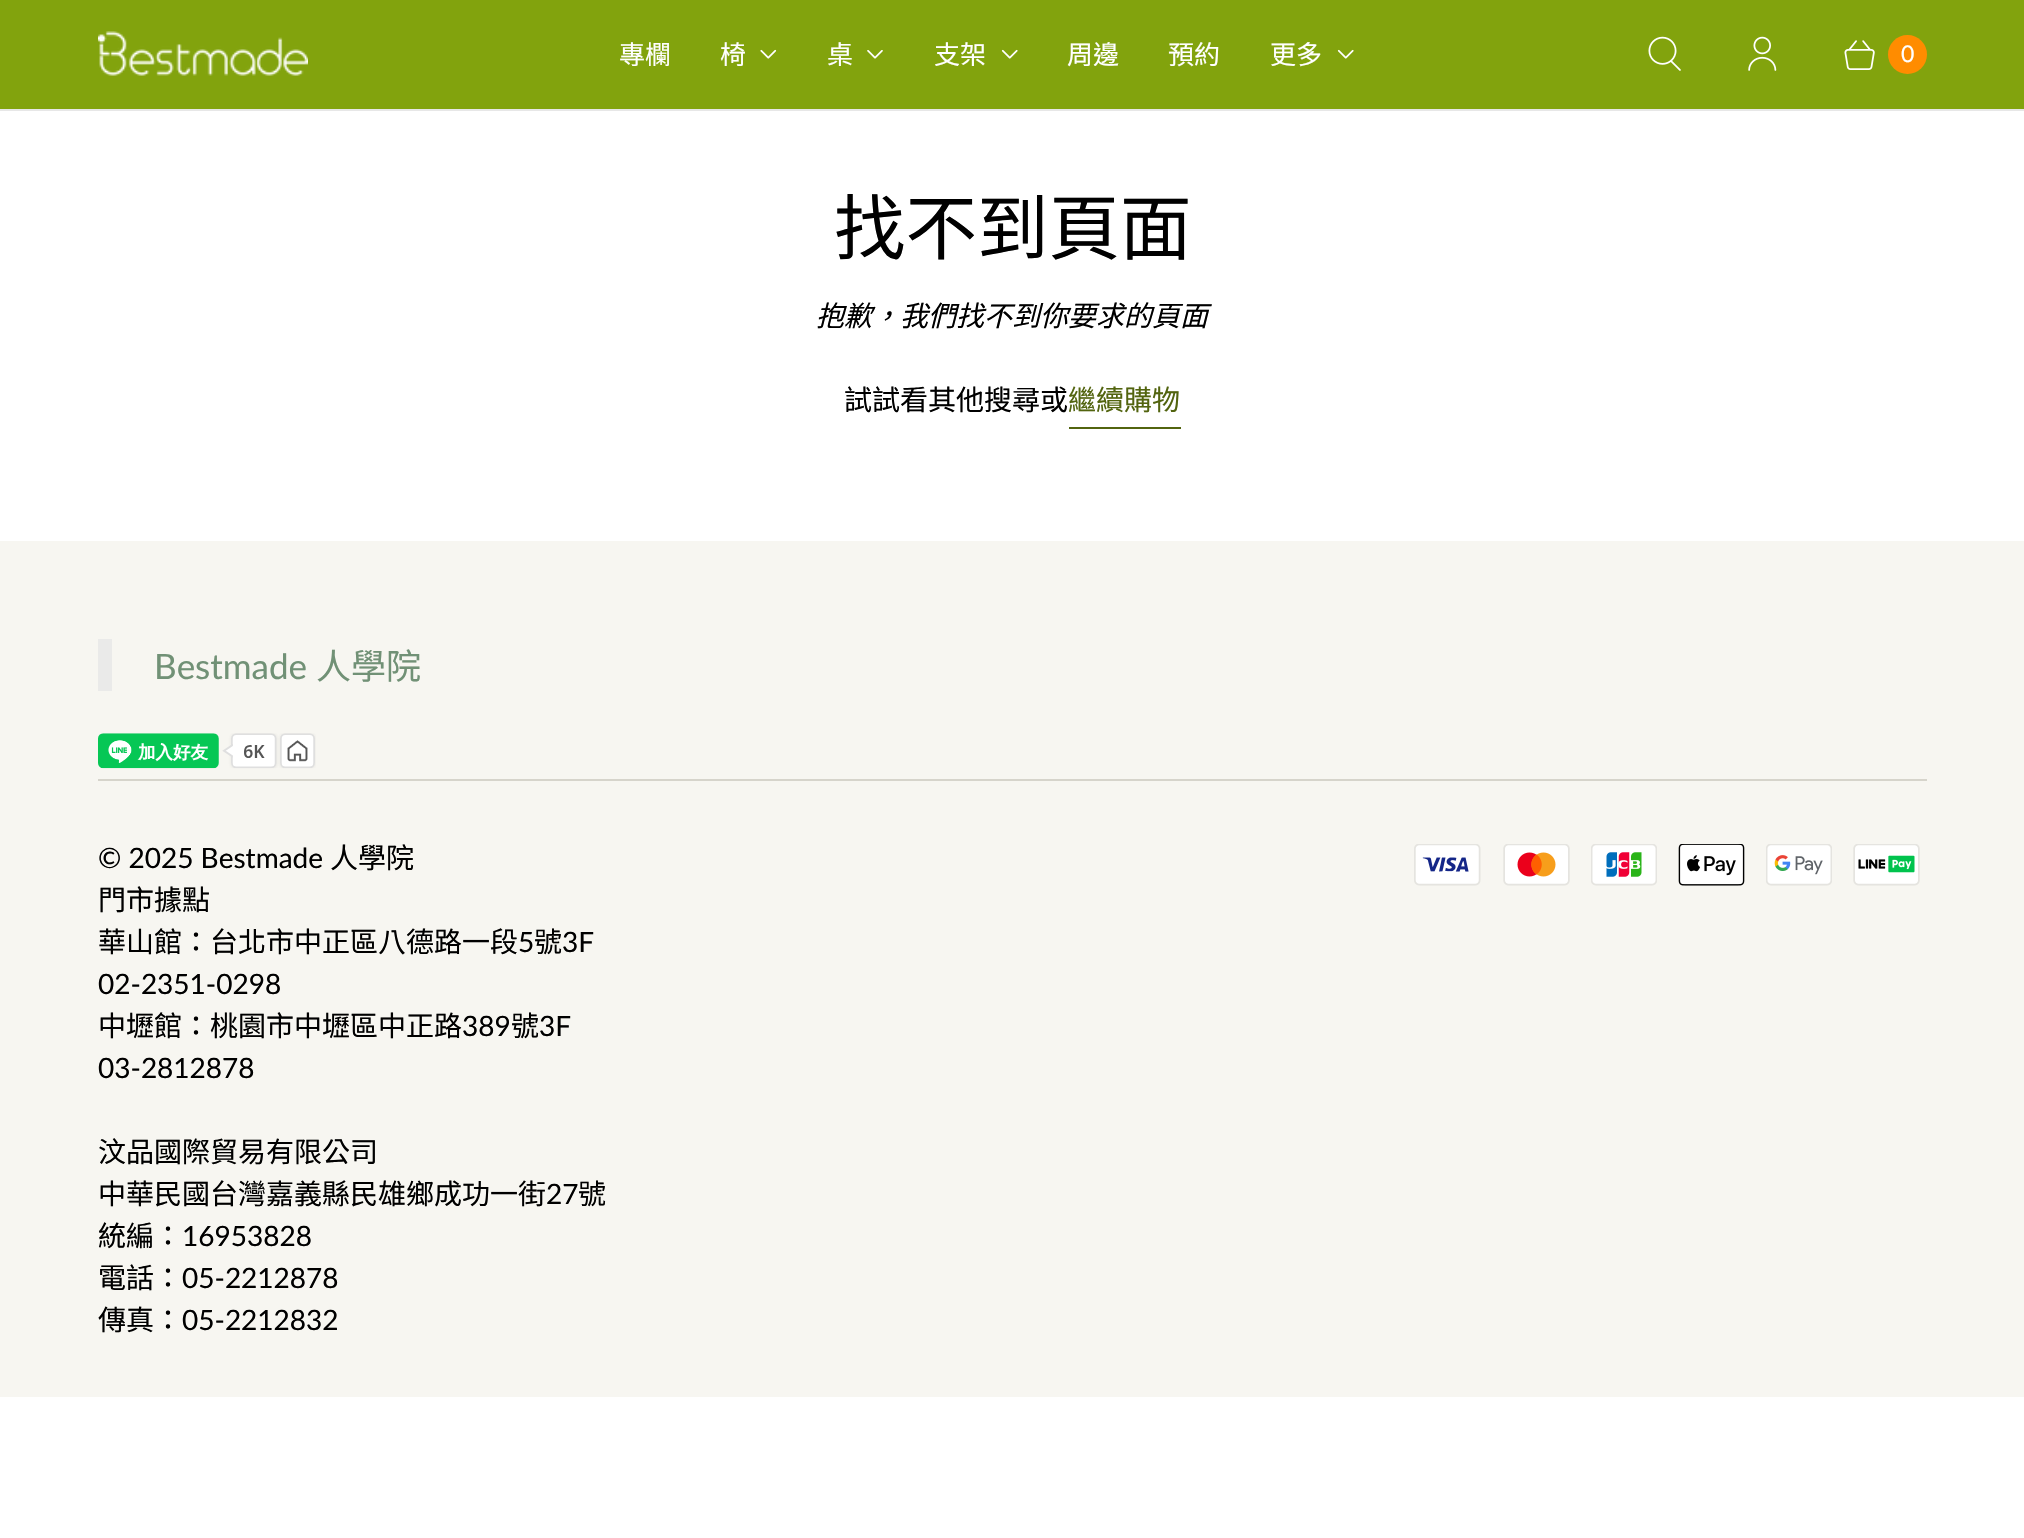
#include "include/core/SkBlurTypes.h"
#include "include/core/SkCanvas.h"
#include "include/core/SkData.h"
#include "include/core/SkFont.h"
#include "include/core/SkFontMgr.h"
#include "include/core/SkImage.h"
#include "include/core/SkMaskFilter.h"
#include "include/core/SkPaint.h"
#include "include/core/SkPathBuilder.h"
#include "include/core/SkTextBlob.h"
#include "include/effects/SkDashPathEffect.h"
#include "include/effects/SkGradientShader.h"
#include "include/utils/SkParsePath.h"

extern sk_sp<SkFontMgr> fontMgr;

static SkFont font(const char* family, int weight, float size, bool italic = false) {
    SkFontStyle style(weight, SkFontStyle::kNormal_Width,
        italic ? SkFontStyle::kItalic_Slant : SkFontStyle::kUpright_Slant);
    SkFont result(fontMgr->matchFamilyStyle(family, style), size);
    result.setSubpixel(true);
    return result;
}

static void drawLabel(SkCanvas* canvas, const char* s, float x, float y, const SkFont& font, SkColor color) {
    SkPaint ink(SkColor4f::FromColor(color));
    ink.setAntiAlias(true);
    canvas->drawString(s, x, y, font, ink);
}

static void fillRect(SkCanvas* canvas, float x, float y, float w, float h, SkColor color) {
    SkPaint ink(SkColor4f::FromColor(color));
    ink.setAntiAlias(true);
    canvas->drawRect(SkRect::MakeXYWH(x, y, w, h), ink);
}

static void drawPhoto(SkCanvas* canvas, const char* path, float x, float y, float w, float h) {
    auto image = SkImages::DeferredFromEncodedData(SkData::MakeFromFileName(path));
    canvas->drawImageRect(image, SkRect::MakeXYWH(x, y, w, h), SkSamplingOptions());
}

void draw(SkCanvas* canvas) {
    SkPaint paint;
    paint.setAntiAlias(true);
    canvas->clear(0xFFFFFFFF);
    fillRect(canvas, 0, 0, 2024, 109, 0xFF82A30D);
    fillRect(canvas, 0, 109, 2024, 2, 0xFFE7E7E7);
    drawPhoto(canvas, "assets/img1.png", 98, 31, 210, 45);
    SkFont font1 = font("Noto Sans CJK TC", 400, 26);
    drawLabel(canvas, "專欄", 619, 64, font1, 0xFFFFFFFF);
    drawLabel(canvas, "椅", 720, 64, font1, 0xFFFFFFFF);
    drawPhoto(canvas, "assets/img2.png", 760, 49, 17, 10);
    drawLabel(canvas, "桌", 827, 64, font1, 0xFFFFFFFF);
    drawPhoto(canvas, "assets/img3.png", 867, 50, 16, 9);
    drawLabel(canvas, "支架", 934, 64, font1, 0xFFFFFFFF);
    drawPhoto(canvas, "assets/img4.png", 1001, 49, 17, 10);
    drawLabel(canvas, "周邊", 1067, 64, font1, 0xFFFFFFFF);
    drawLabel(canvas, "預約", 1168, 64, font1, 0xFFFFFFFF);
    drawLabel(canvas, "更多", 1270, 64, font1, 0xFFFFFFFF);
    drawPhoto(canvas, "assets/img4.png", 1337, 49, 17, 10);
    drawPhoto(canvas, "assets/img5.png", 1648, 36, 33, 35);
    drawPhoto(canvas, "assets/img6.png", 1748, 36, 29, 35);
    drawPhoto(canvas, "assets/img7.png", 1844, 40, 31, 30);
    paint.setColor(0xFFFF8C00);
    canvas->drawCircle(1907.5f, 54.5f, 19.5f, paint);
    SkFont font2 = font("Lato", 400, 23);
    drawLabel(canvas, "0", 1901, 62, font2, 0xFFFFFFFF);
    SkFont font3 = font("Noto Sans CJK TC", 400, 71.5f);
    drawLabel(canvas, "找不到頁面", 834, 254, font3, 0xFF000000);
    SkFont font4 = font("Noto Sans CJK TC", 400, 28, true);
    drawLabel(canvas, "抱歉，我們找不到你要求的頁面", 816, 326, font4, 0xFF000000);
    SkFont font5 = font("Noto Sans CJK TC", 400, 28);
    drawLabel(canvas, "試試看其他搜尋或", 844, 410, font5, 0xFF000000);
    drawLabel(canvas, "繼續購物", 1068, 410, font5, 0xFF52640F);
    fillRect(canvas, 1069, 427, 112, 2, 0xFF52640F);
    fillRect(canvas, 0, 541, 2024, 856, 0xFFF7F6F1);
    fillRect(canvas, 98, 639, 14, 52, 0xFFEAEAE9);
    SkFont font6 = font("Lato", 400, 35);
    drawLabel(canvas, "Bestmade", 154, 679, font6, 0xFF719176);
    SkFont font7 = font("Noto Sans CJK TC", 400, 35);
    drawLabel(canvas, "人學院", 316, 679, font7, 0xFF719176);
    drawPhoto(canvas, "assets/img8.png", 98, 733, 218, 36);
    fillRect(canvas, 98, 779, 1829, 2, 0xFFD6D4CB);
    SkFont font8 = font("Lato", 400, 28);
    drawLabel(canvas, "© 2025 Bestmade", 98, 868, font8, 0xFF000000);
    drawLabel(canvas, "人學院", 330, 868, font5, 0xFF000000);
    drawLabel(canvas, "門市據點", 98, 910, font5, 0xFF000000);
    drawLabel(canvas, "華山館：台北市中正區八德路一段", 98, 952, font5, 0xFF000000);
    drawLabel(canvas, "5", 518, 952, font8, 0xFF000000);
    drawLabel(canvas, "號", 534, 952, font5, 0xFF000000);
    drawLabel(canvas, "3F", 562, 952, font8, 0xFF000000);
    drawLabel(canvas, "02-2351-0298", 98, 994, font8, 0xFF000000);
    drawLabel(canvas, "中壢館：桃園市中壢區中正路", 98, 1036, font5, 0xFF000000);
    drawLabel(canvas, "389", 462, 1036, font8, 0xFF000000);
    drawLabel(canvas, "號", 511, 1036, font5, 0xFF000000);
    drawLabel(canvas, "3F", 539, 1036, font8, 0xFF000000);
    drawLabel(canvas, "03-2812878", 98, 1078, font8, 0xFF000000);
    drawLabel(canvas, "汶品國際貿易有限公司", 98, 1162, font5, 0xFF000000);
    drawLabel(canvas, "中華民國台灣嘉義縣民雄鄉成功一街", 98, 1204, font5, 0xFF000000);
    drawLabel(canvas, "27", 546, 1204, font8, 0xFF000000);
    drawLabel(canvas, "號", 578, 1204, font5, 0xFF000000);
    drawLabel(canvas, "統編：", 98, 1246, font5, 0xFF000000);
    drawLabel(canvas, "16953828", 182, 1246, font8, 0xFF000000);
    drawLabel(canvas, "電話：", 98, 1288, font5, 0xFF000000);
    drawLabel(canvas, "05-2212878", 182, 1288, font8, 0xFF000000);
    drawLabel(canvas, "傳真：", 98, 1330, font5, 0xFF000000);
    drawLabel(canvas, "05-2212832", 182, 1330, font8, 0xFF000000);
    drawPhoto(canvas, "assets/img9.png", 1414, 844, 67, 42);
    drawPhoto(canvas, "assets/img10.png", 1503, 844, 67, 42);
    drawPhoto(canvas, "assets/img11.png", 1591, 844, 66, 42);
    drawPhoto(canvas, "assets/img12.png", 1678, 844, 67, 42);
    drawPhoto(canvas, "assets/img13.png", 1766, 844, 66, 42);
    drawPhoto(canvas, "assets/img14.png", 1853, 844, 67, 42);
}
